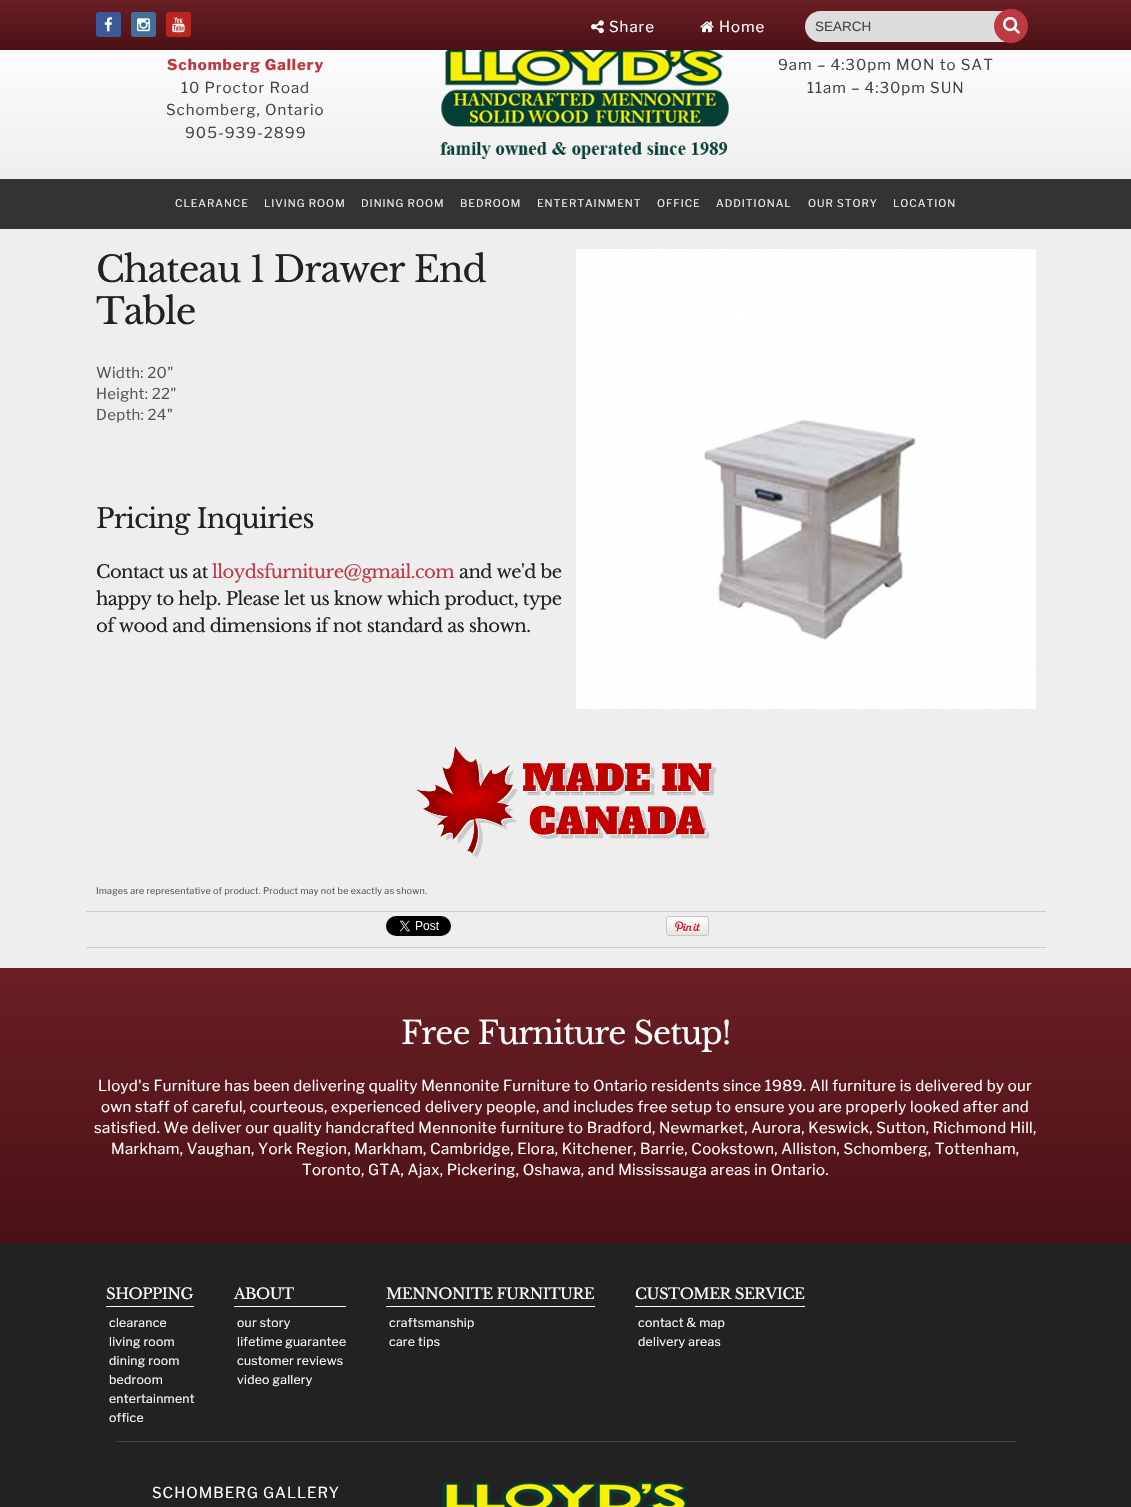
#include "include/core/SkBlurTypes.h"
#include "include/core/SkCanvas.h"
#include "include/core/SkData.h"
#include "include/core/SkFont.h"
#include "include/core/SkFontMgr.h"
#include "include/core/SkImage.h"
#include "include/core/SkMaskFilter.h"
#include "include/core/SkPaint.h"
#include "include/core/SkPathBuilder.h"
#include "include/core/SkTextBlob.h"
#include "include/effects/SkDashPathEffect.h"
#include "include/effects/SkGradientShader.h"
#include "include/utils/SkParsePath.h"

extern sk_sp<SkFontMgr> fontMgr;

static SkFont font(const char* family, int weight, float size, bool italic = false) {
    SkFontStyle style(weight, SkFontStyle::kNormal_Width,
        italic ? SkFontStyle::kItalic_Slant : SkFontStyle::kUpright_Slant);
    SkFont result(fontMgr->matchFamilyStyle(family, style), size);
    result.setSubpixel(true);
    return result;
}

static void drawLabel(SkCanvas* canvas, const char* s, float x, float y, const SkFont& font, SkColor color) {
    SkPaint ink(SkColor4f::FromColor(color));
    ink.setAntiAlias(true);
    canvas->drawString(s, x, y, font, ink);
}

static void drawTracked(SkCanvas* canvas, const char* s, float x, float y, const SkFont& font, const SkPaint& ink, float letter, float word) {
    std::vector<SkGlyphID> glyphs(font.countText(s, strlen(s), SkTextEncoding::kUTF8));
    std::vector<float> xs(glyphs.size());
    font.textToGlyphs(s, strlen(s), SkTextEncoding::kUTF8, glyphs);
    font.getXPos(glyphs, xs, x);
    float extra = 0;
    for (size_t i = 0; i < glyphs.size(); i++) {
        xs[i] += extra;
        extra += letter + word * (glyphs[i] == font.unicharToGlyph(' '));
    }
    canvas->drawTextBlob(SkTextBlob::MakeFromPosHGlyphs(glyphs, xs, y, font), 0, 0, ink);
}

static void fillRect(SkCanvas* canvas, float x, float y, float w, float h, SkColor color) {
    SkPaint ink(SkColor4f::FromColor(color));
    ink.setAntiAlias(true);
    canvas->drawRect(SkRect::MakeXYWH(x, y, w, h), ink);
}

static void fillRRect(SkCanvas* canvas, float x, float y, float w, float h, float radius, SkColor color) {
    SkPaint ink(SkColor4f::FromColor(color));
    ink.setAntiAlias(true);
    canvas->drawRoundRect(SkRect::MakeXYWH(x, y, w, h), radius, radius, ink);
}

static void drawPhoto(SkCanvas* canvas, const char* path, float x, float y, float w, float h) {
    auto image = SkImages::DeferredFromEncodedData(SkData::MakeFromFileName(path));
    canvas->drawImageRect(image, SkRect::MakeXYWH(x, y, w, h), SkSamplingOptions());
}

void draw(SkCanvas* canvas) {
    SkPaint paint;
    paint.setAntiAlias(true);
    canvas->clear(0xFFFFFFFF);
    {
        const SkColor colors[] = {0xFF6A1F24, 0xFF4A1115};
        const float stops[] = {0, 1};
        const SkPoint ends[] = {{566, 0}, {566, 50}};
        paint.setShader(SkGradientShader::MakeLinear(ends, colors, stops, 2, SkTileMode::kClamp));
        paint.setAlpha(255);
    }
    canvas->drawRect(SkRect::MakeXYWH(0, 0, 1131, 50), paint);
    fillRRect(canvas, 96, 12, 25, 25, 3, 0xFF3B5998);
    drawPhoto(canvas, "assets/img1.png", 104, 17, 9, 15);
    fillRRect(canvas, 131, 12, 25, 25, 3, 0xFF3F729B);
    drawPhoto(canvas, "assets/img2.png", 137, 18, 13, 14);
    fillRRect(canvas, 166, 12, 25, 25, 3, 0xFFB82621);
    drawPhoto(canvas, "assets/img3.png", 172, 17, 13, 16);
    drawPhoto(canvas, "assets/img4.png", 591, 20, 13, 14);
    SkFont font1 = font("Libre Franklin", 400, 15);
    paint.setShader(nullptr);
    paint.setColor(0xFFFFFFFF);
    drawTracked(canvas, "Share", 609, 32, font1, paint, 1, 0);
    drawPhoto(canvas, "assets/img5.png", 700, 21, 14, 12);
    drawTracked(canvas, "Home", 719, 32, font1, paint, 1, 0);
    fillRRect(canvas, 805, 11, 220, 31, 15.5f, 0xFFDDDDDD);
    SkFont font2 = font("Liberation Sans", 400, 13.5f);
    drawLabel(canvas, "SEARCH", 815, 31, font2, 0xFF444444);
    paint.setColor(0xFFBF3942);
    canvas->drawCircle(1011, 26, 17, paint);
    drawPhoto(canvas, "assets/img6.png", 1003, 17, 17, 17);
    {
        const SkColor colors[] = {0xFFFFFFFF, 0xFFEEEEEE};
        const float stops[] = {0, 1};
        const SkPoint ends[] = {{566, 29}, {566, 179}};
        paint.setShader(SkGradientShader::MakeLinear(ends, colors, stops, 2, SkTileMode::kClamp));
        paint.setAlpha(255);
    }
    canvas->drawRect(SkRect::MakeXYWH(0, 51, 1131, 128), paint);
    SkFont font3 = font("Libre Franklin", 800, 15);
    paint.setShader(nullptr);
    paint.setColor(0xFFBF3942);
    drawTracked(canvas, "Schomberg Gallery", 167, 70, font3, paint, 1, 0);
    paint.setColor(0xFF444444);
    drawTracked(canvas, "10 Proctor Road", 181, 93, font1, paint, 1, 0);
    drawTracked(canvas, "Schomberg, Ontario", 166, 115, font1, paint, 1, 0);
    drawTracked(canvas, "905-939-2899", 185, 138, font1, paint, 1, 0);
    drawPhoto(canvas, "assets/img7.png", 440, 50, 289, 109);
    drawTracked(canvas, "9am – 4:30pm MON to SAT", 778, 70, font1, paint, 1, 0);
    drawTracked(canvas, "11am – 4:30pm SUN", 807, 93, font1, paint, 1, 0);
    fillRect(canvas, 0, 179, 1131, 50, 0xFF333333);
    SkFont font4 = font("Libre Franklin", 400, 10.5f);
    paint.setColor(0xFFEEEEEE);
    drawTracked(canvas, "CLEARANCE", 175, 207, font4, paint, 1, 0);
    drawTracked(canvas, "LIVING ROOM", 264, 207, font4, paint, 1, 0);
    drawTracked(canvas, "DINING ROOM", 361, 207, font4, paint, 1, 0);
    drawTracked(canvas, "BEDROOM", 460, 207, font4, paint, 1, 0);
    drawTracked(canvas, "ENTERTAINMENT", 537, 207, font4, paint, 1, 0);
    drawTracked(canvas, "OFFICE", 657, 207, font4, paint, 1, 0);
    drawTracked(canvas, "ADDITIONAL", 716, 207, font4, paint, 1, 0);
    drawTracked(canvas, "OUR STORY", 808, 207, font4, paint, 1, 0);
    drawTracked(canvas, "LOCATION", 893, 207, font4, paint, 1, 0);
    fillRect(canvas, 0, 229, 1131, 739, 0xFFEEEEEE);
    SkFont font5 = font("Libre Baskerville", 400, 36);
    paint.setColor(0xFF222222);
    drawTracked(canvas, "Chateau 1 Drawer End", 96, 282, font5, paint, -1.1f, 0);
    drawTracked(canvas, "Table", 96, 324, font5, paint, -1.1f, 0);
    drawPhoto(canvas, "assets/img8.png", 576, 249, 460, 460);
    paint.setColor(0xFF555555);
    drawTracked(canvas, "Width: 20\"", 96, 378, font1, paint, 0.3f, 0);
    drawTracked(canvas, "Height: 22\"", 96, 399, font1, paint, 0.3f, 0);
    drawTracked(canvas, "Depth: 24\"", 96, 420, font1, paint, 0.3f, 0);
    SkFont font6 = font("Libre Baskerville", 400, 27);
    paint.setColor(0xFF222222);
    drawTracked(canvas, "Pricing Inquiries", 96, 528, font6, paint, -0.8f, 0);
    SkFont font7 = font("Libre Baskerville", 400, 18);
    drawTracked(canvas, "Contact us at", 96, 578, font7, paint, -0.55f, 0);
    paint.setColor(0xFFBF3942);
    drawTracked(canvas, "lloydsfurniture@gmail.com", 212, 578, font7, paint, -0.55f, 0);
    paint.setColor(0xFF222222);
    drawTracked(canvas, "and we'd be", 459, 578, font7, paint, -0.55f, 0);
    drawTracked(canvas, "happy to help. Please let us know which product, type", 96, 605, font7, paint, -0.55f, 0);
    drawTracked(canvas, "of wood and dimensions if not standard as shown.", 96, 632, font7, paint, -0.55f, 0);
    drawPhoto(canvas, "assets/img9.png", 416, 746, 300, 112);
    SkFont font8 = font("Libre Franklin", 400, 9);
    paint.setColor(0xFF555555);
    drawTracked(canvas, "Images are representative of product. Product may not be exactly as shown.", 96, 894, font8, paint, 0.18f, 0);
    fillRect(canvas, 86, 911, 960, 1, 0xFFCCCCCC);
    fillRect(canvas, 86, 947, 960, 1, 0xFFCCCCCC);
    drawPhoto(canvas, "assets/img10.png", 386, 916, 65, 20);
    drawPhoto(canvas, "assets/img11.png", 666, 916, 43, 20);
    {
        const SkColor colors[] = {0xFF6A1F24, 0xFF4A1115};
        const float stops[] = {0, 1};
        const SkPoint ends[] = {{566, 968}, {566, 1243}};
        paint.setShader(SkGradientShader::MakeLinear(ends, colors, stops, 2, SkTileMode::kClamp));
        paint.setAlpha(255);
    }
    canvas->drawRect(SkRect::MakeXYWH(0, 968, 1131, 275), paint);
    SkFont font9 = font("Libre Baskerville", 400, 31.5f);
    paint.setShader(nullptr);
    paint.setColor(0xFFFFFFFF);
    drawTracked(canvas, "Free Furniture Setup!", 401, 1044, font9, paint, -0.9f, 0);
    drawTracked(canvas, "Lloyd's Furniture has been delivering quality Mennonite Furniture to Ontario residents since 1989. All furniture is delivered by our", 98, 1091, font1, paint, 0.3f, 0);
    drawTracked(canvas, "own staff of careful, courteous, experienced delivery people, and includes free setup to ensure you are properly looked after and", 101, 1112, font1, paint, 0.3f, 0);
    drawTracked(canvas, "satisfied. We deliver our quality handcrafted Mennonite furniture to Bradford, Newmarket, Aurora, Keswick, Sutton, Richmond Hill,", 94, 1133, font1, paint, 0.3f, 0);
    drawTracked(canvas, "Markham, Vaughan, York Region, Markham, Cambridge, Elora, Kitchener, Barrie, Cookstown, Alliston, Schomberg, Tottenham,", 111, 1154, font1, paint, 0.3f, 0);
    drawTracked(canvas, "Toronto, GTA, Ajax, Pickering, Oshawa, and Mississauga areas in Ontario.", 302, 1175, font1, paint, 0.3f, 0);
    fillRect(canvas, 0, 1243, 1131, 264, 0xFF222222);
    fillRect(canvas, 106, 1306, 88, 1, 0xFFFFFFFF);
    SkFont font10 = font("Libre Baskerville", 400, 15);
    drawTracked(canvas, "SHOPPING", 106, 1299, font10, paint, -0.5f, 0);
    SkFont font11 = font("Libre Franklin", 400, 12.25f);
    drawTracked(canvas, "clearance", 109, 1327, font11, paint, 0.25f, 0);
    drawTracked(canvas, "living room", 109, 1346, font11, paint, 0.25f, 0);
    drawTracked(canvas, "dining room", 109, 1365, font11, paint, 0.25f, 0);
    drawTracked(canvas, "bedroom", 109, 1384, font11, paint, 0.25f, 0);
    drawTracked(canvas, "entertainment", 109, 1403, font11, paint, 0.25f, 0);
    drawTracked(canvas, "office", 109, 1422, font11, paint, 0.25f, 0);
    fillRect(canvas, 234, 1306, 112, 1, 0xFFFFFFFF);
    drawTracked(canvas, "ABOUT", 234, 1299, font10, paint, -0.5f, 0);
    drawTracked(canvas, "our story", 237, 1327, font11, paint, 0.25f, 0);
    drawTracked(canvas, "lifetime guarantee", 237, 1346, font11, paint, 0.25f, 0);
    drawTracked(canvas, "customer reviews", 237, 1365, font11, paint, 0.25f, 0);
    drawTracked(canvas, "video gallery", 237, 1384, font11, paint, 0.25f, 0);
    fillRect(canvas, 386, 1306, 209, 1, 0xFFFFFFFF);
    drawTracked(canvas, "MENNONITE FURNITURE", 386, 1299, font10, paint, -0.5f, 0);
    drawTracked(canvas, "craftsmanship", 389, 1327, font11, paint, 0.25f, 0);
    drawTracked(canvas, "care tips", 389, 1346, font11, paint, 0.25f, 0);
    fillRect(canvas, 635, 1306, 170, 1, 0xFFFFFFFF);
    drawTracked(canvas, "CUSTOMER SERVICE", 635, 1299, font10, paint, -0.5f, 0);
    drawTracked(canvas, "contact & map", 638, 1327, font11, paint, 0.25f, 0);
    drawTracked(canvas, "delivery areas", 638, 1346, font11, paint, 0.25f, 0);
    fillRect(canvas, 116, 1441, 900, 1, 0xFF444444);
    drawTracked(canvas, "SCHOMBERG GALLERY", 152, 1498, font1, paint, 1, 0);
    drawPhoto(canvas, "assets/img12.png", 442, 1482, 247, 25);
}
